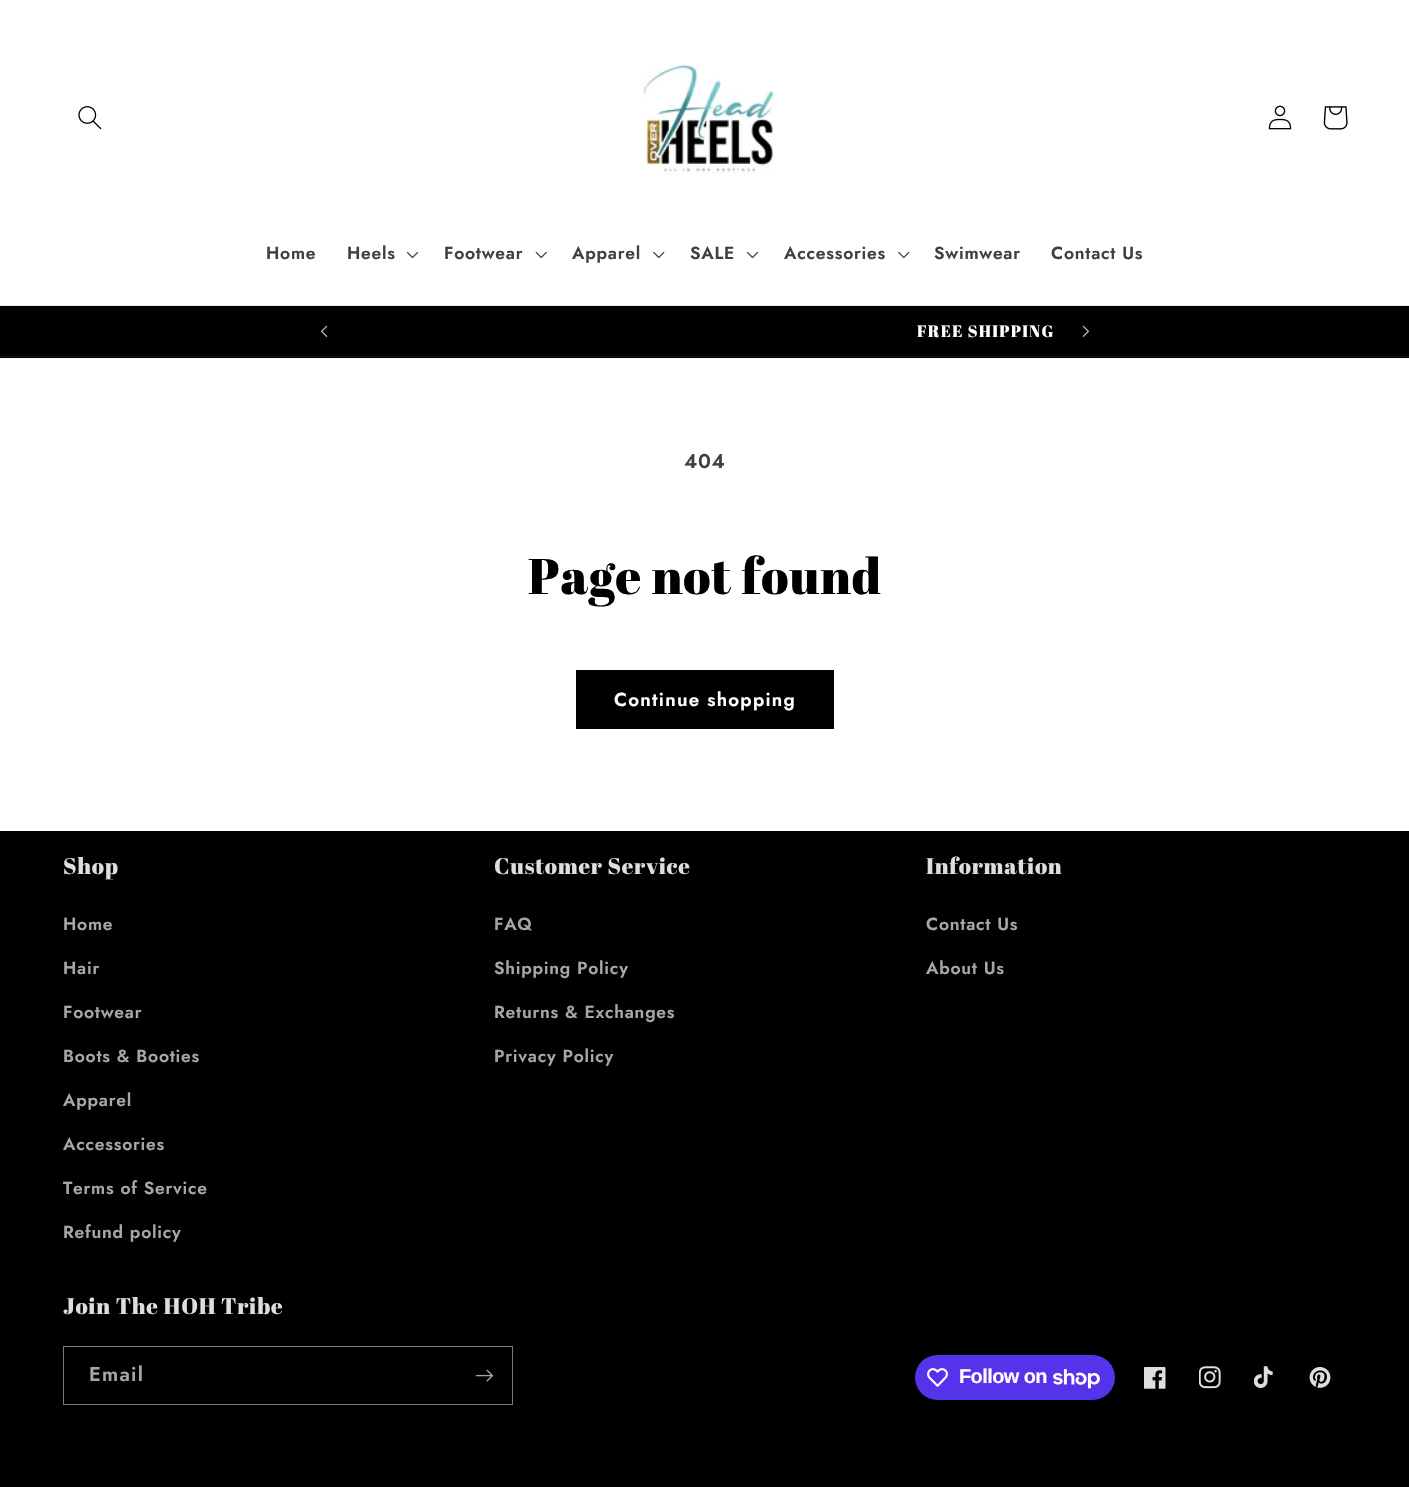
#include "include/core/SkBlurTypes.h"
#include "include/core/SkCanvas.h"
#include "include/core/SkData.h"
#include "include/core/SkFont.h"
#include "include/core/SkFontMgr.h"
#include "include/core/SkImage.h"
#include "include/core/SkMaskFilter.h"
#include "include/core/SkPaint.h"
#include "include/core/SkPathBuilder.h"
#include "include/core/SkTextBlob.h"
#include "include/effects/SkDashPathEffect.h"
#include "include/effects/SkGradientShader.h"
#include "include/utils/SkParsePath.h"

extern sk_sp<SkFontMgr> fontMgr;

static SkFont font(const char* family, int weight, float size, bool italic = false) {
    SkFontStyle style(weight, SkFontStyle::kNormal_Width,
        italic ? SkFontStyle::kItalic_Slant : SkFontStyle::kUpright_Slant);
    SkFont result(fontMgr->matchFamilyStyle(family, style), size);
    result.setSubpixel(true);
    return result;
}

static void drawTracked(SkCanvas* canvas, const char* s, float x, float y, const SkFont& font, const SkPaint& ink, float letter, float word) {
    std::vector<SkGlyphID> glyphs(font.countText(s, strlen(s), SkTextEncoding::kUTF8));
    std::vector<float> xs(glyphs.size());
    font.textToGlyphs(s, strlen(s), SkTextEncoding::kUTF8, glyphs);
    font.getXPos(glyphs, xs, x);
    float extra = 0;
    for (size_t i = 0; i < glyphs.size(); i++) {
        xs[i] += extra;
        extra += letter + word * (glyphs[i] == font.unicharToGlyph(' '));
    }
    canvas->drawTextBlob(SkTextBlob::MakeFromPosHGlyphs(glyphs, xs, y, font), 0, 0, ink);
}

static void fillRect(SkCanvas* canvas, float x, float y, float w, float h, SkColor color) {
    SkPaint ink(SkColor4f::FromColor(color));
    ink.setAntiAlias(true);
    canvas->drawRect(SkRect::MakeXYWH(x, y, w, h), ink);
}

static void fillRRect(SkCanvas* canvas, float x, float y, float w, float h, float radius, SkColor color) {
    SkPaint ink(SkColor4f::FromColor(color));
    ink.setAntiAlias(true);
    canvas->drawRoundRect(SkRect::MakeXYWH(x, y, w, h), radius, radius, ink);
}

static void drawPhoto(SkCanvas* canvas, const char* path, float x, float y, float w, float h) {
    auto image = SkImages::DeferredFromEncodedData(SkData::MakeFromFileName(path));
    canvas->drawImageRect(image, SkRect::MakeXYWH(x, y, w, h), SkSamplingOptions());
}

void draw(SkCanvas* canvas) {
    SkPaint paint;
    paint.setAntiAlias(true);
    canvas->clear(0xFFFFFFFF);
    fillRect(canvas, 0, 305, 1409, 1, 0xFFEBEBEB);
    drawPhoto(canvas, "assets/img1.png", 78, 106, 24, 24);
    drawPhoto(canvas, "assets/img2.png", 643, 64, 133, 113);
    drawPhoto(canvas, "assets/img3.png", 1268, 105, 24, 25);
    drawPhoto(canvas, "assets/img4.png", 1323, 106, 25, 24);
    SkFont font1 = font("Jost", 600, 17.5f);
    paint.setColor(0xFF404040);
    drawTracked(canvas, "Home", 266, 259, font1, paint, 0.75f, 0);
    drawTracked(canvas, "Heels", 347, 259, font1, paint, 0.75f, 0);
    drawPhoto(canvas, "assets/img5.png", 406, 251, 13, 8);
    drawTracked(canvas, "Footwear", 444, 259, font1, paint, 0.75f, 0);
    drawPhoto(canvas, "assets/img6.png", 535, 251, 12, 8);
    drawTracked(canvas, "Apparel", 572, 259, font1, paint, 0.75f, 0);
    drawPhoto(canvas, "assets/img7.png", 653, 251, 12, 8);
    drawTracked(canvas, "SALE", 690, 259, font1, paint, 0.75f, 0);
    drawPhoto(canvas, "assets/img5.png", 746, 251, 13, 8);
    drawTracked(canvas, "Accessories", 784, 259, font1, paint, 0.75f, 0);
    drawPhoto(canvas, "assets/img7.png", 898, 251, 12, 8);
    drawTracked(canvas, "Swimwear", 934, 259, font1, paint, 0.75f, 0);
    drawTracked(canvas, "Contact Us", 1051, 259, font1, paint, 0.75f, 0);
    fillRect(canvas, 0, 306, 1409, 52, 0xFF000000);
    fillRect(canvas, 0, 356, 1409, 1, 0xFF141414);
    drawPhoto(canvas, "assets/img8.png", 321, 325, 7, 12);
    SkFont font2 = font("Abril Fatface", 400, 16.25f);
    paint.setColor(0xFFFFFFFF);
    drawTracked(canvas, "FREE SHIPPING", 917, 337, font2, paint, 1.25f, 0);
    drawPhoto(canvas, "assets/img9.png", 1082, 325, 7, 12);
    SkFont font3 = font("Jost", 600, 20);
    paint.setColor(0xFF404040);
    drawTracked(canvas, "404", 684, 468, font3, paint, 0.75f, 0);
    SkFont font4 = font("Abril Fatface", 400, 50);
    paint.setColor(0xFF000000);
    drawTracked(canvas, "Page not found", 528, 594, font4, paint, 0.75f, 0);
    fillRect(canvas, 576, 670, 258, 59, 0xFF000000);
    SkFont font5 = font("Jost", 600, 18.75f);
    paint.setColor(0xFFFFFFFF);
    drawTracked(canvas, "Continue shopping", 614, 706, font5, paint, 1.25f, 0);
    fillRect(canvas, 0, 831, 1409, 656, 0xFF000000);
    SkFont font6 = font("Abril Fatface", 400, 22.5f);
    paint.setColor(0xFFDEDEDE);
    drawTracked(canvas, "Shop", 63, 874, font6, paint, 0.75f, 0);
    paint.setColor(0xFFA7A7A7);
    drawTracked(canvas, "Home", 63, 930, font1, paint, 0.75f, 0);
    drawTracked(canvas, "Hair", 63, 974, font1, paint, 0.75f, 0);
    drawTracked(canvas, "Footwear", 63, 1018, font1, paint, 0.75f, 0);
    drawTracked(canvas, "Boots & Booties", 63, 1062, font1, paint, 0.75f, 0);
    drawTracked(canvas, "Apparel", 63, 1106, font1, paint, 0.75f, 0);
    drawTracked(canvas, "Accessories", 63, 1150, font1, paint, 0.75f, 0);
    drawTracked(canvas, "Terms of Service", 63, 1194, font1, paint, 0.75f, 0);
    drawTracked(canvas, "Refund policy", 63, 1238, font1, paint, 0.75f, 0);
    paint.setColor(0xFFDEDEDE);
    drawTracked(canvas, "Customer Service", 494, 874, font6, paint, 0.75f, 0);
    paint.setColor(0xFFA7A7A7);
    drawTracked(canvas, "FAQ", 494, 930, font1, paint, 0.75f, 0);
    drawTracked(canvas, "Shipping Policy", 494, 974, font1, paint, 0.75f, 0);
    drawTracked(canvas, "Returns & Exchanges", 494, 1018, font1, paint, 0.75f, 0);
    drawTracked(canvas, "Privacy Policy", 494, 1062, font1, paint, 0.75f, 0);
    paint.setColor(0xFFDEDEDE);
    drawTracked(canvas, "Information", 926, 874, font6, paint, 0.75f, 0);
    paint.setColor(0xFFA7A7A7);
    drawTracked(canvas, "Contact Us", 926, 930, font1, paint, 0.75f, 0);
    drawTracked(canvas, "About Us", 926, 974, font1, paint, 0.75f, 0);
    paint.setColor(0xFFDEDEDE);
    drawTracked(canvas, "Join The HOH Tribe", 63, 1314, font6, paint, 0.75f, 0);
    paint.setStroke(true);
    paint.setStrokeWidth(1);
    paint.setColor(0xFF7A7A7A);
    canvas->drawRect(SkRect::MakeXYWH(63.5f, 1346.5f, 449, 58), paint);
    paint.setStroke(false);
    paint.setColor(0xFFA7A7A7);
    drawTracked(canvas, "Email", 89, 1381, font3, paint, 1.25f, 0);
    drawPhoto(canvas, "assets/img10.png", 475, 1369, 18, 13);
    fillRRect(canvas, 915, 1355, 200, 45, 22.5f, 0xFF5433EB);
    drawPhoto(canvas, "assets/img11.png", 927, 1368, 21, 19);
    SkFont font7 = font("Liberation Sans", 700, 20);
    paint.setColor(0xFFFFFFFF);
    drawTracked(canvas, "Follow on", 959, 1383, font7, paint, -0.6f, 0);
    drawPhoto(canvas, "assets/img12.png", 1053, 1369, 47, 20);
    drawPhoto(canvas, "assets/img13.png", 1144, 1367, 22, 22);
    drawPhoto(canvas, "assets/img14.png", 1199, 1366, 22, 23);
    drawPhoto(canvas, "assets/img15.png", 1254, 1366, 19, 22);
    drawPhoto(canvas, "assets/img16.png", 1309, 1367, 22, 21);
}
